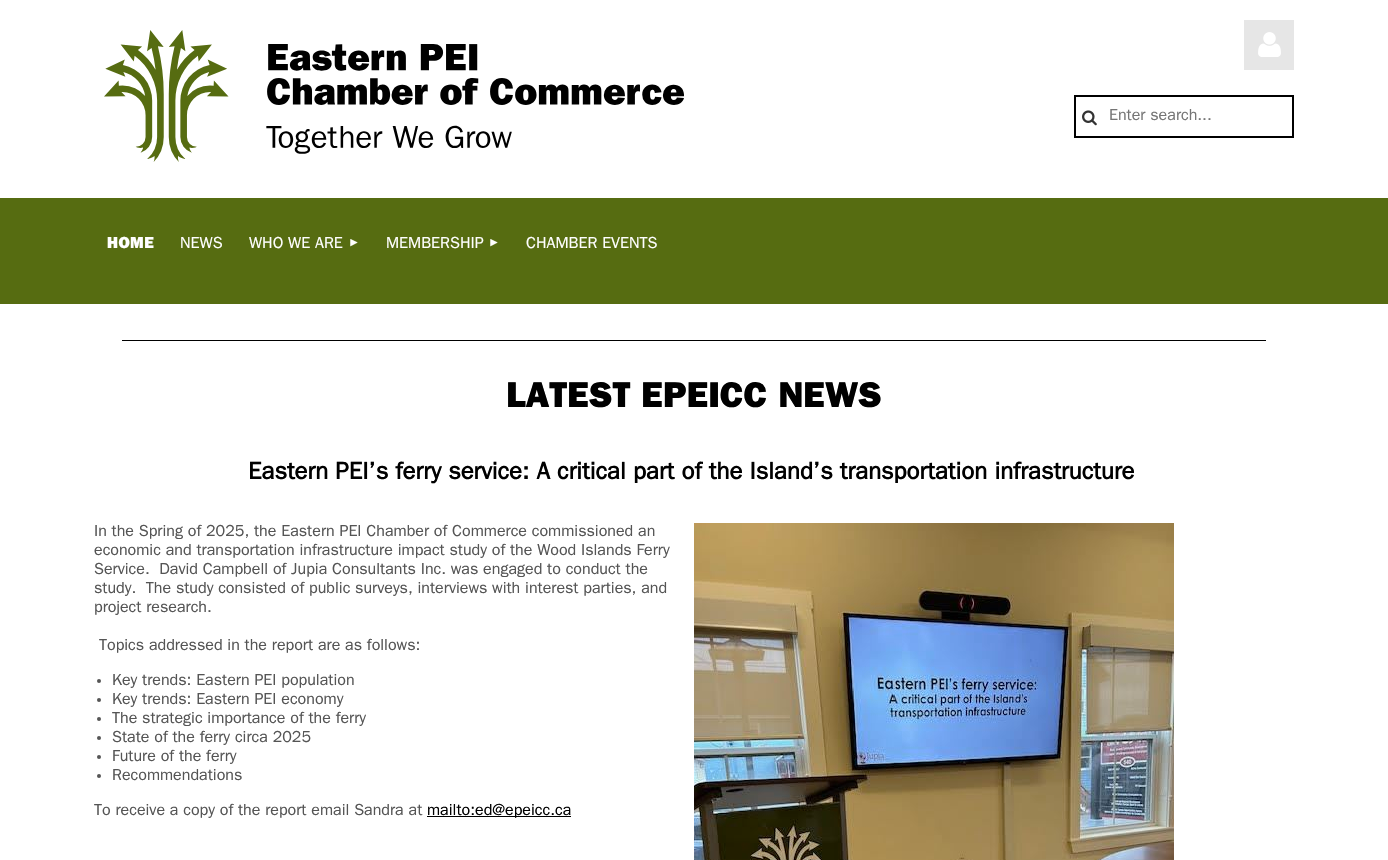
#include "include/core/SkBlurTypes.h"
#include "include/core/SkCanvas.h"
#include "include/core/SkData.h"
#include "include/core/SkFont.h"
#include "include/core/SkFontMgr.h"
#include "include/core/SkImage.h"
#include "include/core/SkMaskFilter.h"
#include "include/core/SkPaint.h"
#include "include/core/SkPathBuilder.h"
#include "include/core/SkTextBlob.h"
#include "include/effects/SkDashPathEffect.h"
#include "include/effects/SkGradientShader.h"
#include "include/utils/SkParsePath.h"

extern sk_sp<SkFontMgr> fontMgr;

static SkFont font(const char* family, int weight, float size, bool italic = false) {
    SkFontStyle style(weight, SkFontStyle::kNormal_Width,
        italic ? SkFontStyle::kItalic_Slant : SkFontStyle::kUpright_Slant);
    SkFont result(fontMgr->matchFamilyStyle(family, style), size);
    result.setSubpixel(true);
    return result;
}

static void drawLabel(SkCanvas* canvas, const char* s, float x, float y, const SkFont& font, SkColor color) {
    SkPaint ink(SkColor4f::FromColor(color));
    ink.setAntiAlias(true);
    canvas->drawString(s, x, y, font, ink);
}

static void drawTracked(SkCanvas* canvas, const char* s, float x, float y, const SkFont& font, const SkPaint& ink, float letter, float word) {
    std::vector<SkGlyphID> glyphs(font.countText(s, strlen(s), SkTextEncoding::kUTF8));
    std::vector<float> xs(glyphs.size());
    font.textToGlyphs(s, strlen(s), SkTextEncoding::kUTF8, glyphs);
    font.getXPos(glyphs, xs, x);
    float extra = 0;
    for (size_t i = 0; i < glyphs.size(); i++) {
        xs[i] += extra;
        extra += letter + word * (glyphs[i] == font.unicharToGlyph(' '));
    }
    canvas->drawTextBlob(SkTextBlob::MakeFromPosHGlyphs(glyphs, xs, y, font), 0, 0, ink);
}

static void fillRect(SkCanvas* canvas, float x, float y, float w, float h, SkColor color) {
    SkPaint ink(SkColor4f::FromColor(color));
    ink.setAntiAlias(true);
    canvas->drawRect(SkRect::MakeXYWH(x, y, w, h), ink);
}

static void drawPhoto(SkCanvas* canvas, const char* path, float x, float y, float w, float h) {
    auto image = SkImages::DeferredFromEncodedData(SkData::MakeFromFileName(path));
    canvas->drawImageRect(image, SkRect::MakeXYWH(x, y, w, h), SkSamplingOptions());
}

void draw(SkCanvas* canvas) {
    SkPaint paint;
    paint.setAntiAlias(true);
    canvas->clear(0xFFFFFFFF);
    drawPhoto(canvas, "assets/img1.png", 104, 30, 580, 132);
    fillRect(canvas, 1244, 20, 50, 50, 0xFFE6E6E6);
    drawPhoto(canvas, "assets/img2.png", 1258, 32, 23, 25);
    paint.setStroke(true);
    paint.setStrokeWidth(2);
    paint.setColor(0xFF000000);
    canvas->drawRect(SkRect::MakeXYWH(1075, 96, 218, 41), paint);
    drawPhoto(canvas, "assets/img3.png", 1082, 110, 15, 16);
    SkFont font1 = font("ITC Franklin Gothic", 400, 16);
    drawLabel(canvas, "Enter search...", 1109, 120, font1, 0xFF757575);
    fillRect(canvas, 0, 198, 1388, 106, 0xFF566C11);
    SkFont font2 = font("ITC Franklin Gothic", 900, 16);
    paint.setStroke(false);
    paint.setColor(0xFFFFFFFF);
    drawTracked(canvas, "HOME", 107, 248, font2, paint, 0.5f, 0);
    drawLabel(canvas, "NEWS", 180, 248, font1, 0xFFFFFFFF);
    drawLabel(canvas, "WHO WE ARE", 249, 248, font1, 0xFFFFFFFF);
    SkFont font3 = font("Liberation Sans", 400, 12);
    drawLabel(canvas, "►", 348, 246, font3, 0xFFFFFFFF);
    drawLabel(canvas, "MEMBERSHIP", 386, 248, font1, 0xFFFFFFFF);
    drawLabel(canvas, "►", 488, 246, font3, 0xFFFFFFFF);
    drawLabel(canvas, "CHAMBER EVENTS", 526, 248, font1, 0xFFFFFFFF);
    fillRect(canvas, 122, 340, 1144, 1, 0xFF000000);
    SkFont font4 = font("ITC Franklin Gothic", 900, 36);
    drawLabel(canvas, "LATEST EPEICC NEWS", 506, 407, font4, 0xFF000000);
    SkFont font5 = font("ITC Franklin Gothic", 700, 24);
    drawLabel(canvas, "Eastern PEI’s ferry service: A critical part of the Island’s transportation infrastructure", 248, 479, font5, 0xFF000000);
    drawLabel(canvas, "In the Spring of 2025, the Eastern PEI Chamber of Commerce commissioned an", 94, 536, font1, 0xFF555555);
    drawLabel(canvas, "economic and transportation infrastructure impact study of the Wood Islands Ferry", 94, 555, font1, 0xFF555555);
    drawLabel(canvas, "Service.  David Campbell of Jupia Consultants Inc. was engaged to conduct the", 94, 574, font1, 0xFF555555);
    drawLabel(canvas, "study.  The study consisted of public surveys, interviews with interest parties, and", 94, 593, font1, 0xFF555555);
    drawLabel(canvas, "project research.", 94, 612, font1, 0xFF555555);
    drawLabel(canvas, "Topics addressed in the report are as follows:", 99, 650, font1, 0xFF555555);
    paint.setColor(0xFF555555);
    canvas->drawCircle(99, 681, 2, paint);
    drawLabel(canvas, "Key trends: Eastern PEI population", 112, 685, font1, 0xFF555555);
    canvas->drawCircle(99, 700, 2, paint);
    drawLabel(canvas, "Key trends: Eastern PEI economy", 112, 704, font1, 0xFF555555);
    canvas->drawCircle(99, 719, 2, paint);
    drawLabel(canvas, "The strategic importance of the ferry", 112, 723, font1, 0xFF555555);
    canvas->drawCircle(99, 738, 2, paint);
    drawLabel(canvas, "State of the ferry circa 2025", 112, 742, font1, 0xFF555555);
    canvas->drawCircle(99, 757, 2, paint);
    drawLabel(canvas, "Future of the ferry", 112, 761, font1, 0xFF555555);
    canvas->drawCircle(99, 776, 2, paint);
    drawLabel(canvas, "Recommendations", 112, 780, font1, 0xFF555555);
    drawLabel(canvas, "To receive a copy of the report email Sandra at", 94, 815, font1, 0xFF555555);
    fillRect(canvas, 427, 816, 144, 1, 0xFF000000);
    drawLabel(canvas, "mailto:ed@epeicc.ca", 427, 815, font1, 0xFF000000);
    drawPhoto(canvas, "assets/img4.png", 694, 523, 480, 337);
}
